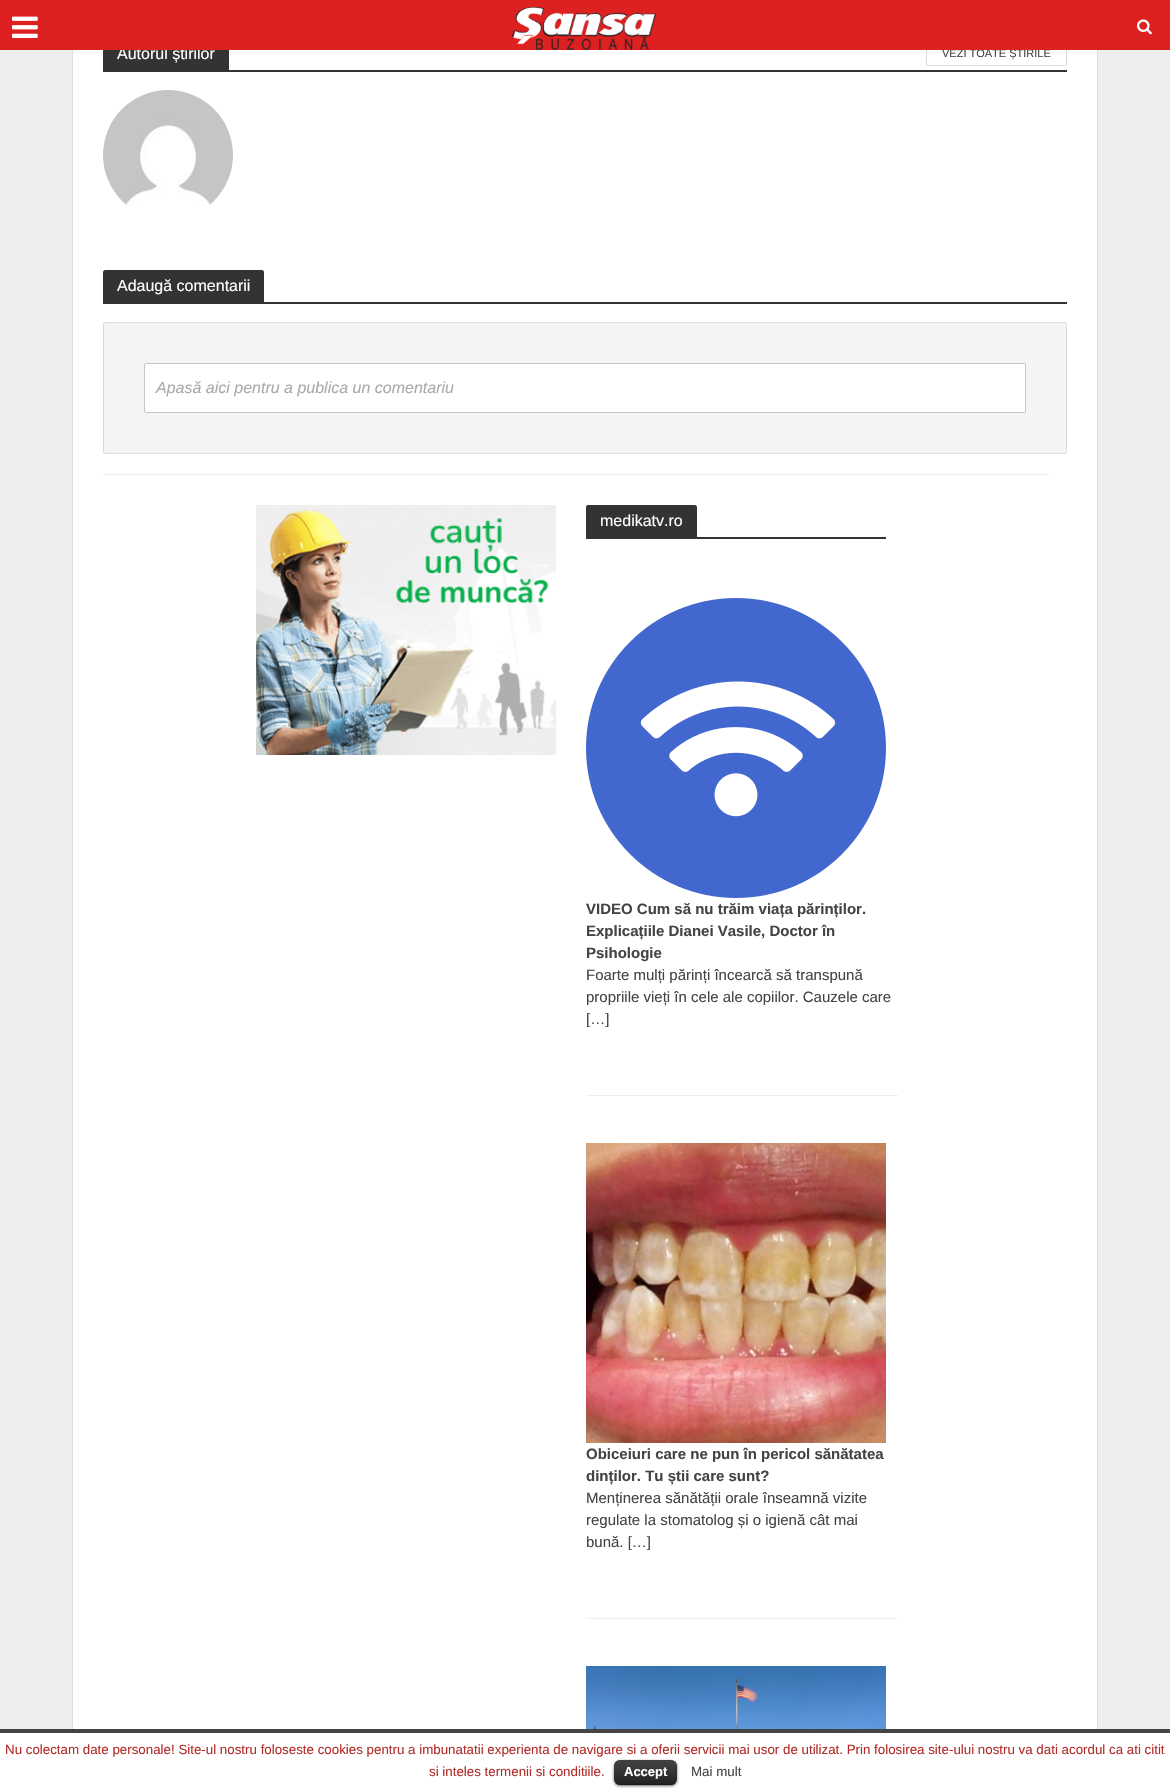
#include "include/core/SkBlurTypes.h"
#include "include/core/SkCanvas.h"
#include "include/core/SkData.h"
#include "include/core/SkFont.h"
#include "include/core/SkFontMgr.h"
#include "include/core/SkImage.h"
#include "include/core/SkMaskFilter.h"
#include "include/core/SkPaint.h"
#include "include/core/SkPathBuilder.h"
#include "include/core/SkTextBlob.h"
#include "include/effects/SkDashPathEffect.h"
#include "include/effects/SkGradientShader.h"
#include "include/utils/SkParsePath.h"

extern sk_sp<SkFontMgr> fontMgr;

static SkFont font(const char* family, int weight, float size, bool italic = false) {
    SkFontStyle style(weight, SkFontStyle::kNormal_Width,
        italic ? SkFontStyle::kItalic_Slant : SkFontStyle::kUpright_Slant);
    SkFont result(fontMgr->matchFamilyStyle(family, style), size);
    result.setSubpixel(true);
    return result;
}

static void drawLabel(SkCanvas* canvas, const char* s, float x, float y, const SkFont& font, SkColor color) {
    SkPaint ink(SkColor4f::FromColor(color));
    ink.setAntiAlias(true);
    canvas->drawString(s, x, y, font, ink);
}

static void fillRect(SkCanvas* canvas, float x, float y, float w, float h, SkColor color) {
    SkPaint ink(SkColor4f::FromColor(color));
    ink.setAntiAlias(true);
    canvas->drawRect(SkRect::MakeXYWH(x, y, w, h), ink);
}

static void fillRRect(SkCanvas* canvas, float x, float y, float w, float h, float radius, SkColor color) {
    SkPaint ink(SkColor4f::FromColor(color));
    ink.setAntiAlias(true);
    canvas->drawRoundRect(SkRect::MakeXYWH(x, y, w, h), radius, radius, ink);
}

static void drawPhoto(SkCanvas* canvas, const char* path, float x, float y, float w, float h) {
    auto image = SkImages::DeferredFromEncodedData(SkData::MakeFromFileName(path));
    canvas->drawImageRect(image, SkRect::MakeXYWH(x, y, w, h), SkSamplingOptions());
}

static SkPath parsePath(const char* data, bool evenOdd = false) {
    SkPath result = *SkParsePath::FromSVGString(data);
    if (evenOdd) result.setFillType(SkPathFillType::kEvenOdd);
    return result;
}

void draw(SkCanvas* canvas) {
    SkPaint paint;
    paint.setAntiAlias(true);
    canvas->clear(0xFFEEEEEE);
    paint.setStroke(true);
    paint.setStrokeWidth(1);
    paint.setColor(0xFFDDDDDD);
    canvas->drawRect(SkRect::MakeXYWH(72.5f, -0.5f, 1025, 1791), paint);
    fillRect(canvas, 73, 50, 1024, 1679, 0xFFFFFFFF);
    fillRect(canvas, 103, 50, 126, 20, 0xFF333333);
    SkFont font1 = font("Liberation Sans", 400, 16);
    drawLabel(canvas, "Autorul știrilor", 117, 59, font1, 0xFFFFFFFF);
    paint.setColor(0xFFDADADA);
    canvas->drawRoundRect(SkRect::MakeXYWH(926.5f, 40.5f, 140, 25), 1.5f, 1.5f, paint);
    SkFont font2 = font("Liberation Sans", 400, 11);
    drawLabel(canvas, "VEZI TOATE ȘTIRILE", 942, 57, font2, 0xFF444444);
    fillRect(canvas, 0, 0, 1170, 50, 0xFFDD2121);
    drawPhoto(canvas, "assets/img1.png", 12, 16, 26, 22);
    drawPhoto(canvas, "assets/img2.png", 511, 7, 146, 43);
    drawPhoto(canvas, "assets/img3.png", 1137, 19, 15, 16);
    fillRect(canvas, 103, 70, 964, 2, 0xFF333333);
    drawPhoto(canvas, "assets/img4.png", 103, 90, 130, 115);
    paint.setStroke(false);
    paint.setColor(0xFF333333);
    canvas->drawPath(parsePath("M105 270H262C263 270 264 271 264 272V302H103V272C103 271 104 270 105 270Z"), paint);
    drawLabel(canvas, "Adaugă comentarii", 117, 291, font1, 0xFFFFFFFF);
    fillRect(canvas, 103, 302, 964, 2, 0xFF333333);
    paint.setColor(0xFFF4F4F4);
    canvas->drawRoundRect(SkRect::MakeXYWH(103.5f, 322.5f, 963, 131), 1.5f, 1.5f, paint);
    paint.setStroke(true);
    paint.setColor(0xFFDADADA);
    canvas->drawRoundRect(SkRect::MakeXYWH(103.5f, 322.5f, 963, 131), 1.5f, 1.5f, paint);
    paint.setStroke(false);
    paint.setColor(0xFFFFFFFF);
    canvas->drawRoundRect(SkRect::MakeXYWH(144.5f, 363.5f, 881, 49), 1.5f, 1.5f, paint);
    paint.setStroke(true);
    paint.setColor(0xFFC7C7C7);
    canvas->drawRoundRect(SkRect::MakeXYWH(144.5f, 363.5f, 881, 49), 1.5f, 1.5f, paint);
    SkFont font3 = font("Liberation Sans", 400, 16, true);
    drawLabel(canvas, "Apasă aici pentru a publica un comentariu", 156, 393, font3, 0xFFAAAAAA);
    fillRect(canvas, 103, 474, 947, 1, 0xFFEEEEEE);
    drawPhoto(canvas, "assets/img5.png", 256, 505, 300, 250);
    paint.setStroke(false);
    paint.setColor(0xFF333333);
    canvas->drawPath(parsePath("M588 505H695C696 505 697 506 697 507V537H586V507C586 506 587 505 588 505Z"), paint);
    drawLabel(canvas, "medikatv.ro", 600, 526, font1, 0xFFFFFFFF);
    fillRect(canvas, 586, 537, 300, 2, 0xFF333333);
    fillRect(canvas, 586, 1095, 312, 1, 0xFFEEEEEE);
    drawPhoto(canvas, "assets/img6.png", 586, 598, 300, 300);
    SkFont font4 = font("Liberation Sans", 700, 15);
    drawLabel(canvas, "VIDEO Cum să nu trăim viața părinților.", 586, 914, font4, 0xFF444444);
    drawLabel(canvas, "Explicațiile Dianei Vasile, Doctor în", 586, 936, font4, 0xFF444444);
    drawLabel(canvas, "Psihologie", 586, 958, font4, 0xFF444444);
    SkFont font5 = font("Liberation Sans", 400, 15);
    drawLabel(canvas, "Foarte mulți părinți încearcă să transpună", 586, 980, font5, 0xFF444444);
    drawLabel(canvas, "propriile vieți în cele ale copiilor. Cauzele care", 586, 1002, font5, 0xFF444444);
    drawLabel(canvas, "[…]", 586, 1024, font5, 0xFF444444);
    fillRect(canvas, 586, 1618, 312, 1, 0xFFEEEEEE);
    drawPhoto(canvas, "assets/img7.png", 586, 1143, 300, 300);
    drawLabel(canvas, "Obiceiuri care ne pun în pericol sănătatea", 586, 1459, font4, 0xFF444444);
    drawLabel(canvas, "dinților. Tu știi care sunt?", 586, 1481, font4, 0xFF444444);
    drawLabel(canvas, "Menținerea sănătății orale înseamnă vizite", 586, 1503, font5, 0xFF444444);
    drawLabel(canvas, "regulate la stomatolog și o igienă cât mai", 586, 1525, font5, 0xFF444444);
    drawLabel(canvas, "bună. […]", 586, 1547, font5, 0xFF444444);
    drawPhoto(canvas, "assets/img8.png", 586, 1666, 300, 63);
    fillRect(canvas, 0, 1733, 1170, 57, 0xFFFFFFFF);
    fillRect(canvas, 0, 1729, 1170, 4, 0xFF444444);
    SkFont font6 = font("Liberation Sans", 400, 13.33f);
    drawLabel(canvas, "Nu colectam date personale! Site-ul nostru foloseste cookies pentru a imbunatatii experienta de navigare si a oferii servicii mai usor de utilizat. Prin folosirea site-ului nostru va dati acordul ca ati citit", 5, 1754, font6, 0xFFB22D29);
    drawLabel(canvas, "si inteles termenii si conditiile.", 429, 1776, font6, 0xFFB22D29);
    paint.setColor(0x99000000);
    paint.setMaskFilter(SkMaskFilter::MakeBlur(kNormal_SkBlurStyle, 1.5f));
    canvas->drawRoundRect(SkRect::MakeXYWH(614, 1761, 63, 25), 6, 6, paint);
    paint.setMaskFilter(nullptr);
    fillRRect(canvas, 614, 1760, 63, 25, 6, 0xFF000000);
    drawPhoto(canvas, "assets/img9.png", 614, 1760, 63, 25);
    fillRect(canvas, 617, 1784, 57, 1, 0x40000000);
    SkFont font7 = font("Liberation Sans", 700, 13);
    drawLabel(canvas, "Accept", 624, 1776, font7, 0xFFFFFFFF);
    drawLabel(canvas, "Mai mult", 691, 1776, font6, 0xFF444444);
}
